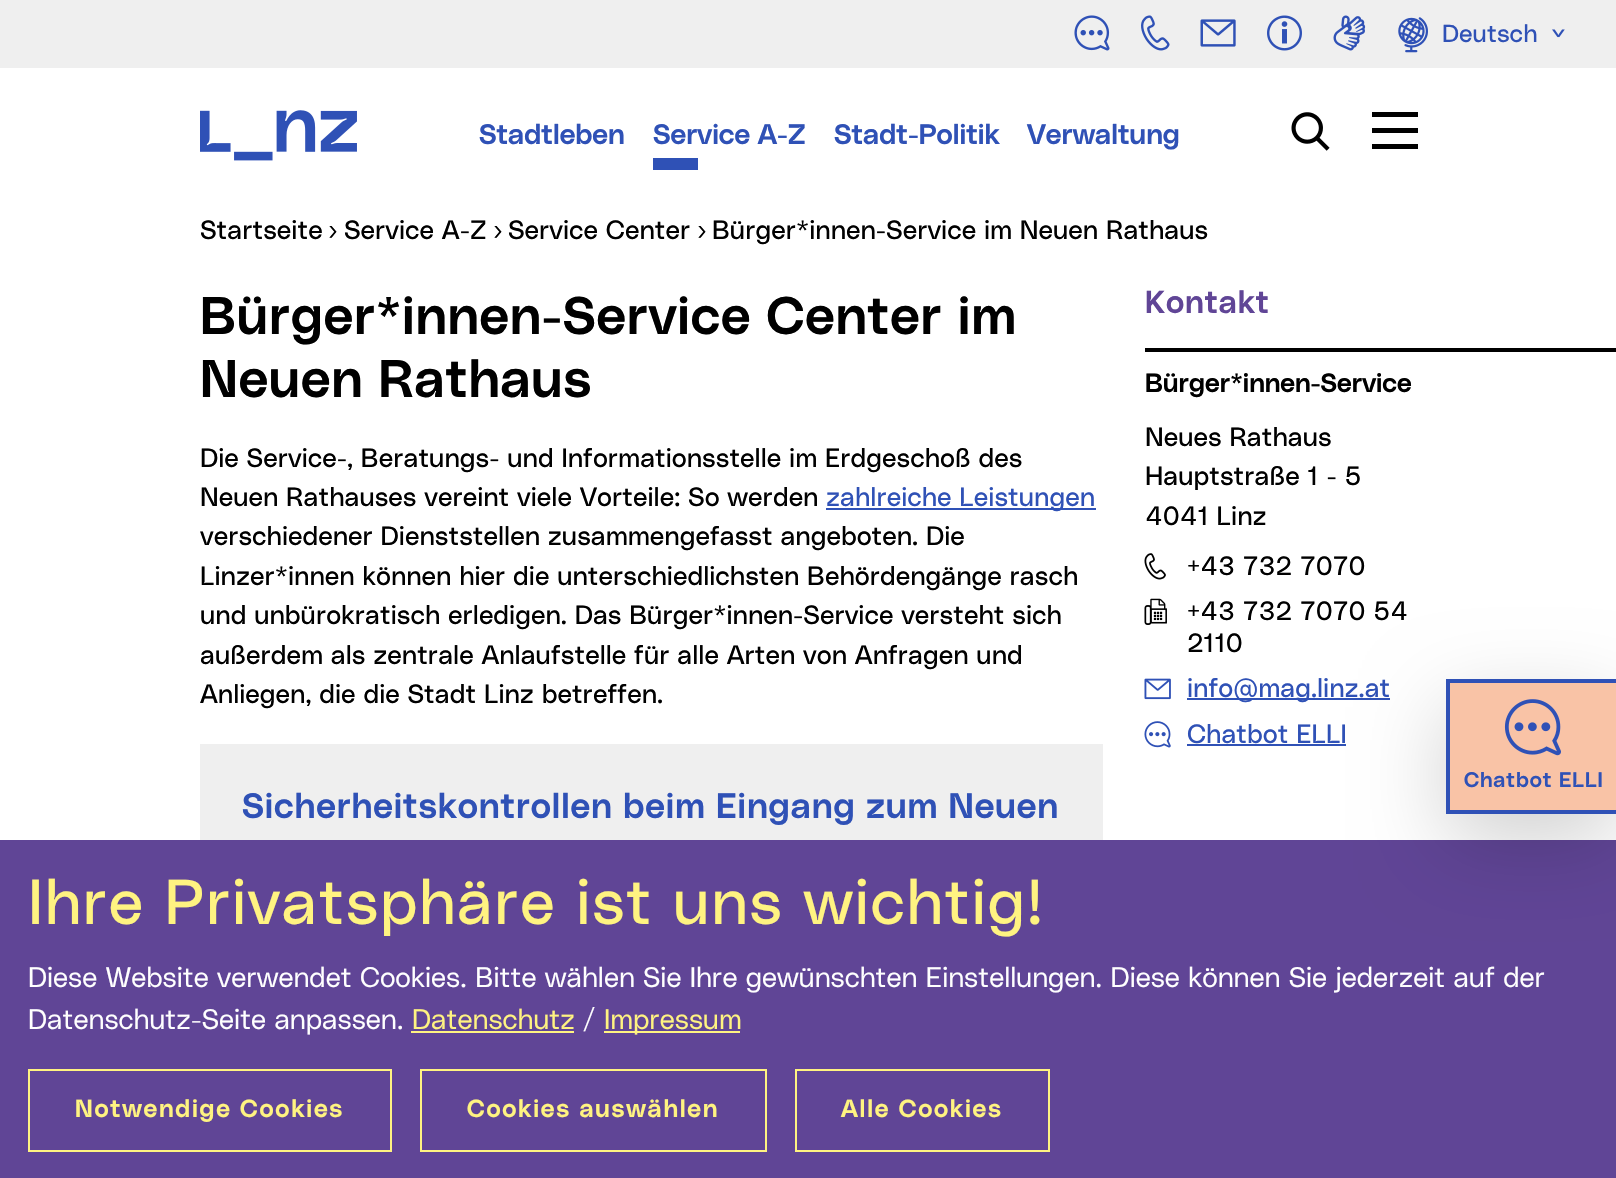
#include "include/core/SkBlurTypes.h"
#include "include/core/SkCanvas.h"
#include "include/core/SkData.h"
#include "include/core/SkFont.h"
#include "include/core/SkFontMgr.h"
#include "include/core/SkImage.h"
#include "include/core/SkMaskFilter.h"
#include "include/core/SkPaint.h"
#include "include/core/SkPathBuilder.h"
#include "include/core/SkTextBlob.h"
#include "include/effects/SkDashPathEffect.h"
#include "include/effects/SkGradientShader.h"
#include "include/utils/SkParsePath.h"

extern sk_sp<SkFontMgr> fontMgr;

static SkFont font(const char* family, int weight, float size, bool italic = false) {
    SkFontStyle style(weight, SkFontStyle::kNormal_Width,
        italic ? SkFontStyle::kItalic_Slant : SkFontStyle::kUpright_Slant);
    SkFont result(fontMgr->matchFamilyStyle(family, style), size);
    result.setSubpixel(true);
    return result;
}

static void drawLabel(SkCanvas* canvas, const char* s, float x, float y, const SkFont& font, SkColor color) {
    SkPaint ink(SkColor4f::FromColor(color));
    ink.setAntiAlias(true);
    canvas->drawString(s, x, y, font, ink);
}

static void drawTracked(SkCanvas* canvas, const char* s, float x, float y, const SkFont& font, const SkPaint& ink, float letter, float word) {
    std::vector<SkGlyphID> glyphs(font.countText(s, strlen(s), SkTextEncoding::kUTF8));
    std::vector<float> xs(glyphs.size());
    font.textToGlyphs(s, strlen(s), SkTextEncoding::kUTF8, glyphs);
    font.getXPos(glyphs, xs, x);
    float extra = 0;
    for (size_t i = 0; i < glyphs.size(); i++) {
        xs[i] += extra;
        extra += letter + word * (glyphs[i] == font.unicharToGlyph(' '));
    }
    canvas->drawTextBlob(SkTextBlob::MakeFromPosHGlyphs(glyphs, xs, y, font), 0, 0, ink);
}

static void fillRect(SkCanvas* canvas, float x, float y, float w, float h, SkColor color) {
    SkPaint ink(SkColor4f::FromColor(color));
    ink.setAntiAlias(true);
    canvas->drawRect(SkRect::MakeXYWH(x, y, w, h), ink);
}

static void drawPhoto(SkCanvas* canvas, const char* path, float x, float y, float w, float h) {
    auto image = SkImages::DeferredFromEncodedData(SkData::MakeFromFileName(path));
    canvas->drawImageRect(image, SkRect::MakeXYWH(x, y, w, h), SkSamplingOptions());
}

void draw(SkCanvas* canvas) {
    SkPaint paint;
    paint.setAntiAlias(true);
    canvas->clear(0xFFFFFFFF);
    fillRect(canvas, 0, 0, 1616, 68, 0xFFEFEFEF);
    drawPhoto(canvas, "assets/img1.png", 1074, 15, 36, 36);
    drawPhoto(canvas, "assets/img2.png", 1141, 15, 29, 36);
    drawPhoto(canvas, "assets/img3.png", 1200, 19, 36, 28);
    drawPhoto(canvas, "assets/img4.png", 1267, 15, 35, 36);
    drawPhoto(canvas, "assets/img5.png", 1333, 15, 33, 36);
    drawPhoto(canvas, "assets/img6.png", 1398, 17, 30, 36);
    SkFont font1 = font("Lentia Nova", 400, 24.5f);
    drawLabel(canvas, "Deutsch", 1442, 42, font1, 0xFF2F51B6);
    drawPhoto(canvas, "assets/img7.png", 1552, 29, 13, 9);
    drawPhoto(canvas, "assets/img8.png", 200, 110, 157, 51);
    SkFont font2 = font("Lentia Nova", 600, 28);
    drawLabel(canvas, "Stadtleben", 479, 144, font2, 0xFF2F51B6);
    drawLabel(canvas, "Service A-Z", 653, 144, font2, 0xFF2F51B6);
    fillRect(canvas, 653, 158, 45, 12, 0xFF2F51B6);
    drawLabel(canvas, "Stadt-Politik", 834, 144, font2, 0xFF2F51B6);
    drawLabel(canvas, "Verwaltung", 1027, 144, font2, 0xFF2F51B6);
    drawPhoto(canvas, "assets/img9.png", 1291, 112, 39, 39);
    fillRect(canvas, 1372, 112, 46, 5, 0xFF000000);
    fillRect(canvas, 1372, 128, 46, 5, 0xFF000000);
    fillRect(canvas, 1372, 144, 46, 5, 0xFF000000);
    SkFont font3 = font("Lentia Nova", 400, 26.25f);
    drawLabel(canvas, "Startseite", 200, 239, font3, 0xFF000000);
    drawLabel(canvas, "›", 328, 239, font3, 0xFF000000);
    drawLabel(canvas, "Service A-Z", 344, 239, font3, 0xFF000000);
    drawLabel(canvas, "›", 493, 239, font3, 0xFF000000);
    drawLabel(canvas, "Service Center", 508, 239, font3, 0xFF000000);
    drawLabel(canvas, "›", 697, 239, font3, 0xFF000000);
    drawLabel(canvas, "Bürger*innen-Service im Neuen Rathaus", 712, 239, font3, 0xFF000000);
    SkFont font4 = font("Lentia Nova", 600, 52.5f);
    paint.setColor(0xFF000000);
    drawTracked(canvas, "Bürger*innen-Service Center im", 200, 334, font4, paint, 0.9f, 0);
    drawTracked(canvas, "Neuen Rathaus", 200, 397, font4, paint, 0.9f, 0);
    drawLabel(canvas, "Die Service-, Beratungs- und Informationsstelle im Erdgeschoß des", 200, 467, font3, 0xFF000000);
    drawLabel(canvas, "Neuen Rathauses vereint viele Vorteile: So werden", 200, 506, font3, 0xFF000000);
    fillRect(canvas, 826, 508, 270, 2, 0xFF2F51B6);
    drawLabel(canvas, "zahlreiche Leistungen", 826, 506, font3, 0xFF2F51B6);
    drawLabel(canvas, "verschiedener Dienststellen zusammengefasst angeboten. Die", 200, 545, font3, 0xFF000000);
    drawLabel(canvas, "Linzer*innen können hier die unterschiedlichsten Behördengänge rasch", 200, 585, font3, 0xFF000000);
    drawLabel(canvas, "und unbürokratisch erledigen. Das Bürger*innen-Service versteht sich", 200, 624, font3, 0xFF000000);
    drawLabel(canvas, "außerdem als zentrale Anlaufstelle für alle Arten von Anfragen und", 200, 664, font3, 0xFF000000);
    drawLabel(canvas, "Anliegen, die die Stadt Linz betreffen.", 200, 703, font3, 0xFF000000);
    fillRect(canvas, 200, 744, 903, 96, 0xFFEFEFEF);
    SkFont font5 = font("Lentia Nova", 600, 35);
    paint.setColor(0xFF2F51B6);
    drawTracked(canvas, "Sicherheitskontrollen beim Eingang zum Neuen", 242, 818, font5, paint, 0.9f, 0);
    SkFont font6 = font("Lentia Nova", 600, 31.5f);
    paint.setColor(0xFF604596);
    drawTracked(canvas, "Kontakt", 1145, 313, font6, paint, 0.9f, 0);
    fillRect(canvas, 1145, 348, 471, 4, 0xFF000000);
    SkFont font7 = font("Lentia Nova", 600, 26.25f);
    drawLabel(canvas, "Bürger*innen-Service", 1145, 392, font7, 0xFF000000);
    drawLabel(canvas, "Neues Rathaus", 1145, 446, font3, 0xFF000000);
    drawLabel(canvas, "Hauptstraße 1 - 5", 1145, 485, font3, 0xFF000000);
    drawLabel(canvas, "4041 Linz", 1145, 525, font3, 0xFF000000);
    drawPhoto(canvas, "assets/img10.png", 1144, 553, 22, 27);
    drawLabel(canvas, "+43 732 7070", 1187, 575, font3, 0xFF000000);
    drawPhoto(canvas, "assets/img11.png", 1144, 598, 23, 27);
    drawLabel(canvas, "+43 732 7070 54", 1187, 620, font3, 0xFF000000);
    drawLabel(canvas, "2110", 1187, 652, font3, 0xFF000000);
    drawPhoto(canvas, "assets/img12.png", 1144, 678, 27, 22);
    fillRect(canvas, 1187, 698, 203, 2, 0xFF2F51B6);
    drawLabel(canvas, "info@mag.linz.at", 1187, 697, font3, 0xFF2F51B6);
    drawPhoto(canvas, "assets/img13.png", 1144, 721, 27, 27);
    drawLabel(canvas, "Chatbot ELLI", 1187, 743, font3, 0xFF2F51B6);
    fillRect(canvas, 1187, 744, 159, 2, 0xFF2F51B6);
    fillRect(canvas, 0, 840, 1616, 338, 0xFF604596);
    paint.setColor(0x2E000000);
    paint.setMaskFilter(SkMaskFilter::MakeBlur(kNormal_SkBlurStyle, 42));
    canvas->drawRect(SkRect::MakeXYWH(1446, 707, 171, 135), paint);
    paint.setMaskFilter(nullptr);
    fillRect(canvas, 1450, 683, 166, 127, 0xFFF9C3A6);
    fillRect(canvas, 1446, 679, 170, 4, 0xFF2F51B6);
    fillRect(canvas, 1446, 810, 170, 4, 0xFF2F51B6);
    fillRect(canvas, 1446, 679, 4, 135, 0xFF2F51B6);
    drawPhoto(canvas, "assets/img14.png", 1504, 699, 57, 57);
    SkFont font8 = font("Lentia Nova", 600, 21);
    paint.setColor(0xFF2F51B6);
    drawTracked(canvas, "Chatbot ELLI", 1464, 787, font8, paint, 0.9f, 0);
    SkFont font9 = font("Lentia Nova", 400, 63);
    paint.setColor(0xFFFFF381);
    drawTracked(canvas, "Ihre Privatsphäre ist uns wichtig!", 28, 924, font9, paint, 1.3f, 0);
    SkFont font10 = font("Lentia Nova", 300, 28);
    drawLabel(canvas, "Diese Website verwendet Cookies. Bitte wählen Sie Ihre gewünschten Einstellungen. Diese können Sie jederzeit auf der", 28, 987, font10, 0xFFFFFFFF);
    drawLabel(canvas, "Datenschutz-Seite anpassen.", 28, 1029, font10, 0xFFFFFFFF);
    drawLabel(canvas, "Datenschutz", 412, 1029, font10, 0xFFFFF381);
    fillRect(canvas, 411, 1031, 163, 2, 0xFFFFF381);
    drawLabel(canvas, "/", 583, 1029, font10, 0xFFFFFFFF);
    fillRect(canvas, 604, 1031, 136, 2, 0xFFFFF381);
    drawLabel(canvas, "Impressum", 604, 1029, font10, 0xFFFFF381);
    paint.setStroke(true);
    paint.setStrokeWidth(2);
    canvas->drawRect(SkRect::MakeXYWH(29, 1070, 362, 81), paint);
    SkFont font11 = font("Lentia Nova", 600, 24.5f);
    paint.setStroke(false);
    drawTracked(canvas, "Notwendige Cookies", 75, 1117, font11, paint, 1.75f, 0);
    paint.setStroke(true);
    canvas->drawRect(SkRect::MakeXYWH(421, 1070, 345, 81), paint);
    paint.setStroke(false);
    drawTracked(canvas, "Cookies auswählen", 467, 1117, font11, paint, 1.75f, 0);
    paint.setStroke(true);
    canvas->drawRect(SkRect::MakeXYWH(796, 1070, 253, 81), paint);
    paint.setStroke(false);
    drawTracked(canvas, "Alle Cookies", 841, 1117, font11, paint, 1.75f, 0);
}
